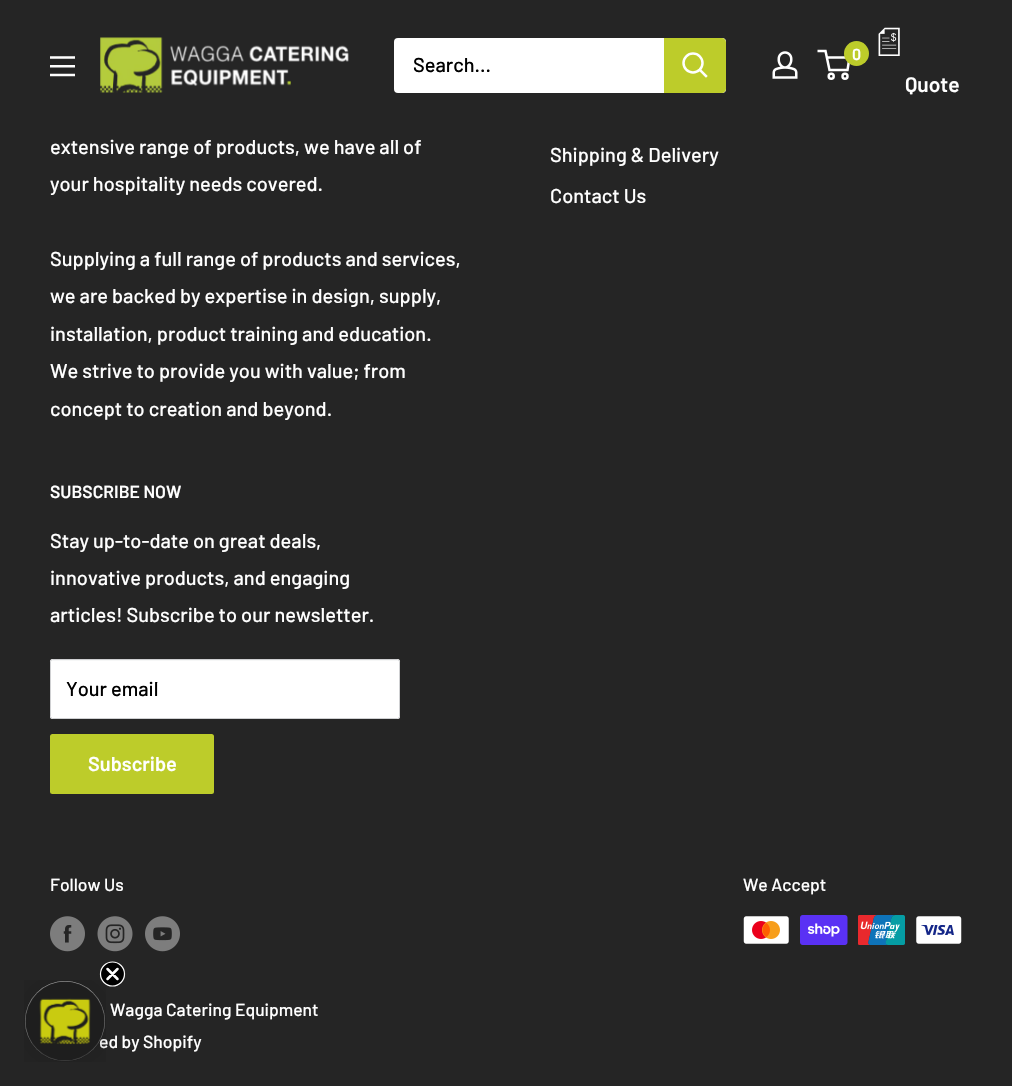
#include "include/core/SkBlurTypes.h"
#include "include/core/SkCanvas.h"
#include "include/core/SkData.h"
#include "include/core/SkFont.h"
#include "include/core/SkFontMgr.h"
#include "include/core/SkImage.h"
#include "include/core/SkMaskFilter.h"
#include "include/core/SkPaint.h"
#include "include/core/SkPathBuilder.h"
#include "include/core/SkTextBlob.h"
#include "include/effects/SkDashPathEffect.h"
#include "include/effects/SkGradientShader.h"
#include "include/utils/SkParsePath.h"

extern sk_sp<SkFontMgr> fontMgr;

static SkFont font(const char* family, int weight, float size, bool italic = false) {
    SkFontStyle style(weight, SkFontStyle::kNormal_Width,
        italic ? SkFontStyle::kItalic_Slant : SkFontStyle::kUpright_Slant);
    SkFont result(fontMgr->matchFamilyStyle(family, style), size);
    result.setSubpixel(true);
    return result;
}

static void drawLabel(SkCanvas* canvas, const char* s, float x, float y, const SkFont& font, SkColor color) {
    SkPaint ink(SkColor4f::FromColor(color));
    ink.setAntiAlias(true);
    canvas->drawString(s, x, y, font, ink);
}

static void fillRRect(SkCanvas* canvas, float x, float y, float w, float h, float radius, SkColor color) {
    SkPaint ink(SkColor4f::FromColor(color));
    ink.setAntiAlias(true);
    canvas->drawRoundRect(SkRect::MakeXYWH(x, y, w, h), radius, radius, ink);
}

static void drawPhoto(SkCanvas* canvas, const char* path, float x, float y, float w, float h) {
    auto image = SkImages::DeferredFromEncodedData(SkData::MakeFromFileName(path));
    canvas->drawImageRect(image, SkRect::MakeXYWH(x, y, w, h), SkSamplingOptions());
}

static SkPath parsePath(const char* data, bool evenOdd = false) {
    SkPath result = *SkParsePath::FromSVGString(data);
    if (evenOdd) result.setFillType(SkPathFillType::kEvenOdd);
    return result;
}

void draw(SkCanvas* canvas) {
    SkPaint paint;
    paint.setAntiAlias(true);
    canvas->clear(0xFF252525);
    drawPhoto(canvas, "assets/img1.png", 50, 56, 25, 21);
    drawPhoto(canvas, "assets/img2.png", 100, 37, 249, 56);
    fillRRect(canvas, 394, 38, 332, 55, 4, 0xFFFFFFFF);
    SkFont font1 = font("Barlow", 500, 20);
    drawLabel(canvas, "Search...", 413, 72, font1, 0xFF000000);
    paint.setColor(0xFFBDCC2A);
    canvas->drawPath(parsePath("M664 38H722C724 38 726 40 726 42V89C726 91 724 93 722 93H664Z"), paint);
    paint.setStroke(true);
    paint.setStrokeWidth(2.5f);
    paint.setStrokeCap(SkPaint::kSquare_Cap);
    paint.setColor(0xFFFFFFFF);
    canvas->drawPath(parsePath("M706 76L700 70"), paint);
    paint.setStrokeCap(SkPaint::kButt_Cap);
    canvas->drawCircle(693, 63, 9.5f, paint);
    drawPhoto(canvas, "assets/img3.png", 772, 51, 26, 28);
    canvas->drawCircle(831.2f, 76.2f, 2.5f, paint);
    canvas->drawCircle(845, 76.2f, 2.5f, paint);
    canvas->drawPath(parsePath("M826.5 57.5H849.5L847.5 70H829.5L825.5 51H817.5"), paint);
    paint.setStroke(false);
    paint.setColor(0xFFBDCC2A);
    canvas->drawCircle(856.5f, 53.5f, 12.5f, paint);
    SkFont font2 = font("Barlow", 600, 16);
    drawLabel(canvas, "0", 852, 60, font2, 0xFFFFFFFF);
    drawPhoto(canvas, "assets/img4.png", 878, 27, 22, 29);
    SkFont font3 = font("Barlow", 600, 21);
    drawLabel(canvas, "Quote", 905, 92, font3, 0xFFFFFFFF);
    drawLabel(canvas, "extensive range of products, we have all of", 50, 154, font1, 0xFFFFFFFF);
    drawLabel(canvas, "your hospitality needs covered.", 50, 191, font1, 0xFFFFFFFF);
    drawLabel(canvas, "Supplying a full range of products and services,", 50, 266, font1, 0xFFFFFFFF);
    drawLabel(canvas, "we are backed by expertise in design, supply,", 50, 303, font1, 0xFFFFFFFF);
    drawLabel(canvas, "installation, product training and education.", 50, 341, font1, 0xFFFFFFFF);
    drawLabel(canvas, "We strive to provide you with value; from", 50, 378, font1, 0xFFFFFFFF);
    drawLabel(canvas, "concept to creation and beyond.", 50, 416, font1, 0xFFFFFFFF);
    drawLabel(canvas, "Shipping & Delivery", 550, 162, font1, 0xFFFFFFFF);
    drawLabel(canvas, "Contact Us", 550, 203, font1, 0xFFFFFFFF);
    SkFont font4 = font("Barlow", 600, 17.5f);
    drawLabel(canvas, "SUBSCRIBE NOW", 50, 498, font4, 0xFFFFFFFF);
    drawLabel(canvas, "Stay up-to-date on great deals,", 50, 548, font1, 0xFFFFFFFF);
    drawLabel(canvas, "innovative products, and engaging", 50, 585, font1, 0xFFFFFFFF);
    drawLabel(canvas, "articles! Subscribe to our newsletter.", 50, 622, font1, 0xFFFFFFFF);
    fillRRect(canvas, 50, 659, 350, 60, 2.5f, 0xFFFFFFFF);
    paint.setColor(0xFFF6F7F7);
    canvas->drawPath(parsePath("M52 661H398L399 662V661L398 660H51V662Z"), paint);
    paint.setStroke(true);
    paint.setStrokeWidth(1);
    paint.setColor(0xFFCFD0D2);
    canvas->drawRoundRect(SkRect::MakeXYWH(50.5f, 659.5f, 349, 59), 2, 2, paint);
    drawLabel(canvas, "Your email", 66, 696, font1, 0xFF000000);
    fillRRect(canvas, 50, 734, 164, 60, 2.5f, 0xFFBDCC2A);
    SkFont font5 = font("Barlow", 600, 20);
    drawLabel(canvas, "Subscribe", 88, 771, font5, 0xFFFFFFFF);
    SkFont font6 = font("Barlow", 500, 17.5f);
    drawLabel(canvas, "Follow Us", 50, 891, font6, 0xFFFFFFFF);
    drawPhoto(canvas, "assets/img5.png", 50, 916, 35, 36);
    drawPhoto(canvas, "assets/img6.png", 97, 916, 36, 36);
    drawPhoto(canvas, "assets/img7.png", 145, 916, 35, 36);
    drawLabel(canvas, "We Accept", 743, 891, font6, 0xFFFFFFFF);
    drawPhoto(canvas, "assets/img8.png", 743, 916, 46, 28);
    drawPhoto(canvas, "assets/img9.png", 800, 915, 48, 30);
    drawPhoto(canvas, "assets/img10.png", 858, 915, 47, 30);
    drawPhoto(canvas, "assets/img11.png", 916, 916, 46, 28);
    drawLabel(canvas, "Wagga Catering Equipment", 110, 1016, font6, 0xFFFFFFFF);
    drawLabel(canvas, "ed by Shopify", 99, 1048, font6, 0xFFFFFFFF);
    paint.setStroke(false);
    paint.setColor(0xFFFFFFFF);
    canvas->drawCircle(65, 1021, 40, paint);
    drawPhoto(canvas, "assets/img12.png", 24, 980, 82, 82);
    paint.setColor(0xFF000000);
    canvas->drawCircle(112.5f, 974, 12, paint);
    paint.setStroke(true);
    paint.setStrokeWidth(1.2f);
    paint.setColor(0xFFFFFFFF);
    canvas->drawCircle(112.5f, 974, 12, paint);
    paint.setStrokeWidth(2.5f);
    paint.setStrokeCap(SkPaint::kRound_Cap);
    paint.setStrokeJoin(SkPaint::kRound_Join);
    canvas->drawPath(parsePath("M107.5 969L117.5 979M107.5 979L117.5 969Z"), paint);
}
